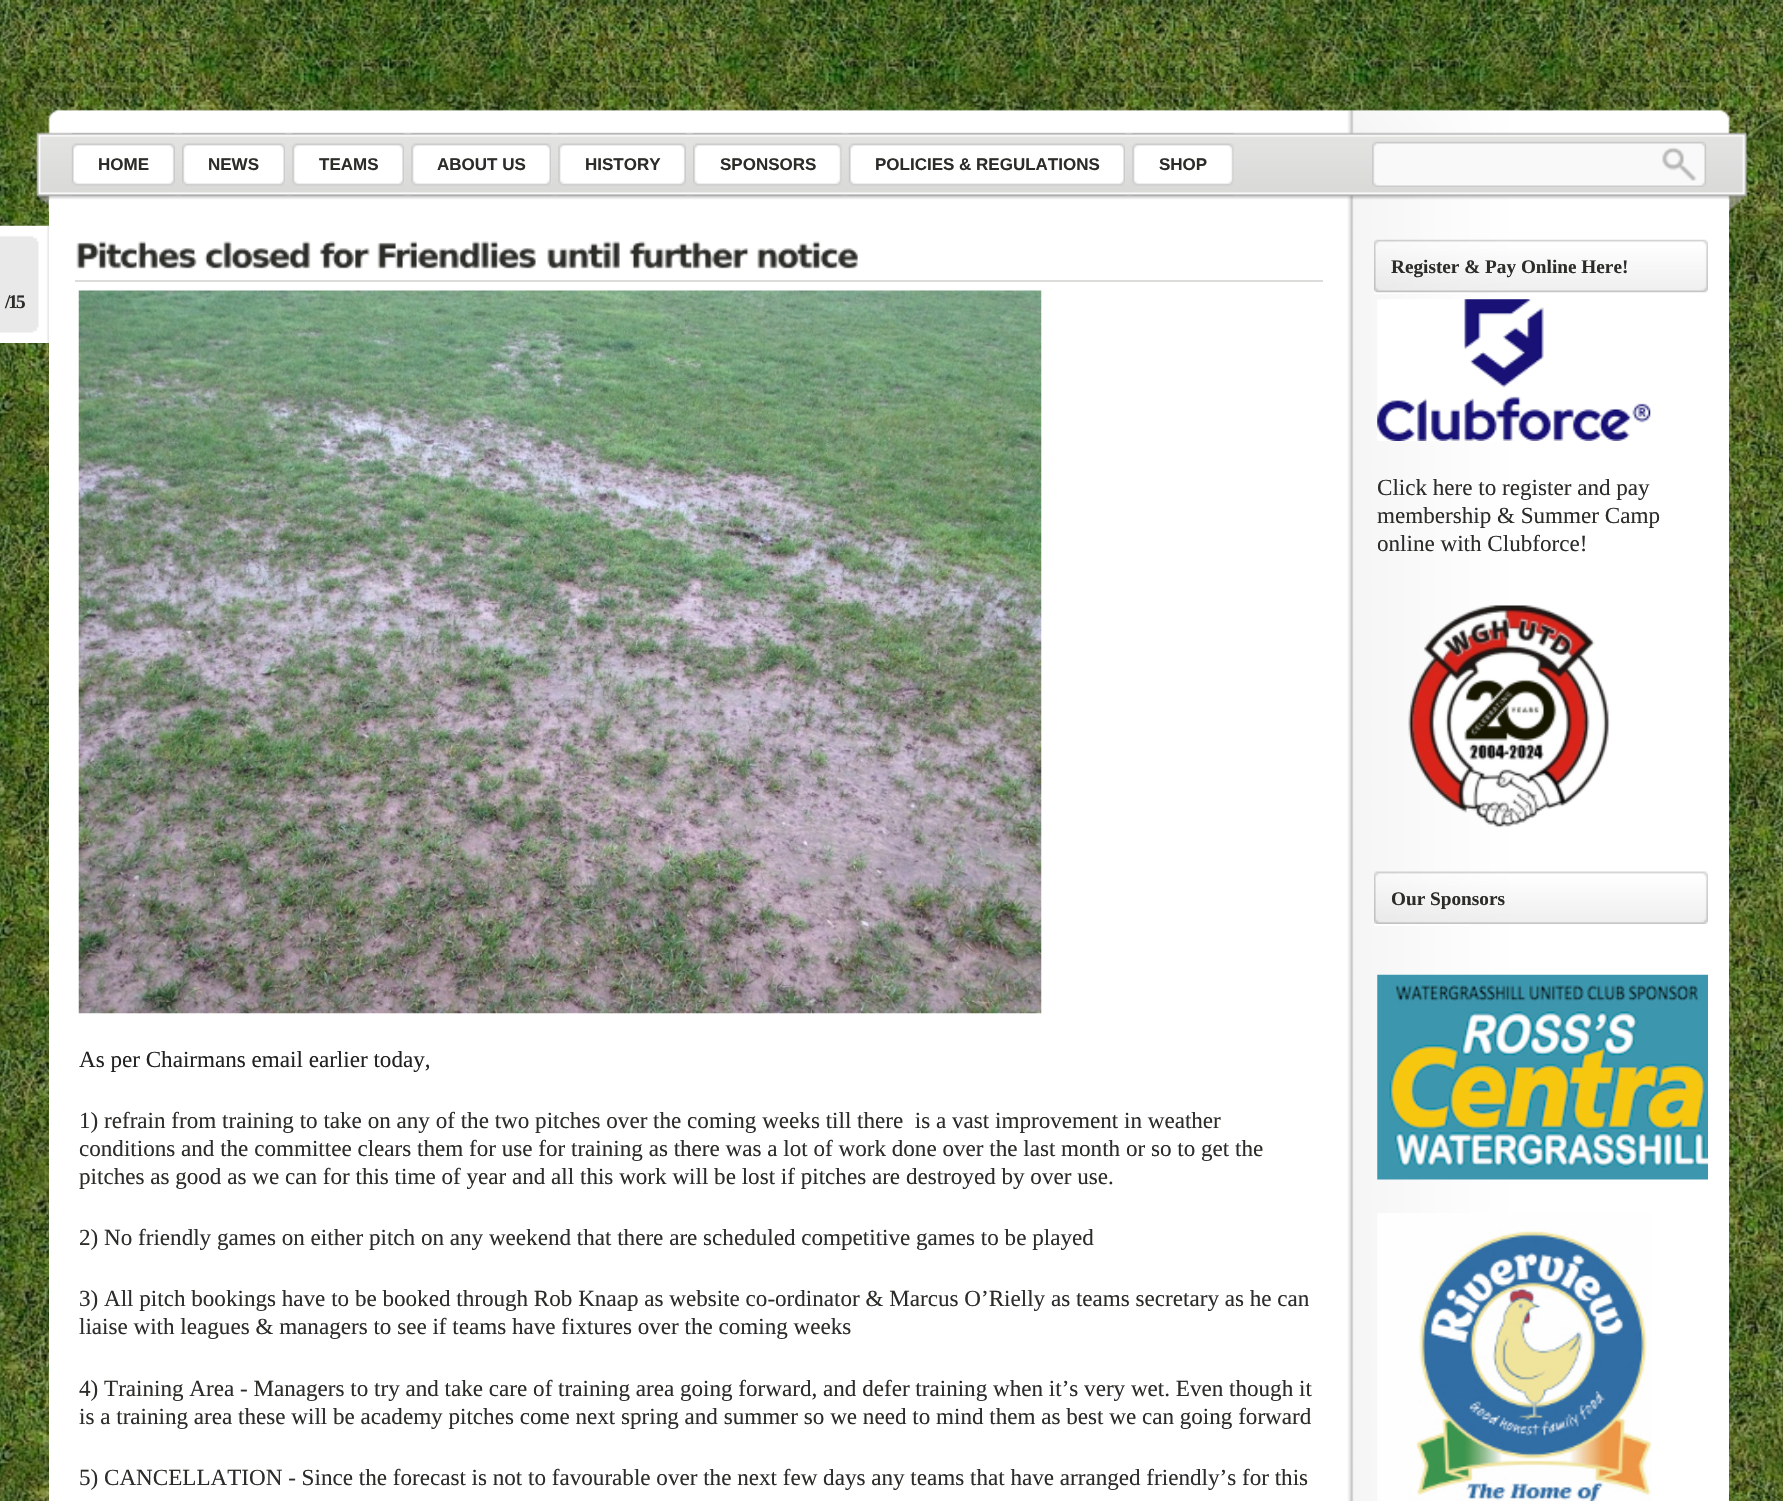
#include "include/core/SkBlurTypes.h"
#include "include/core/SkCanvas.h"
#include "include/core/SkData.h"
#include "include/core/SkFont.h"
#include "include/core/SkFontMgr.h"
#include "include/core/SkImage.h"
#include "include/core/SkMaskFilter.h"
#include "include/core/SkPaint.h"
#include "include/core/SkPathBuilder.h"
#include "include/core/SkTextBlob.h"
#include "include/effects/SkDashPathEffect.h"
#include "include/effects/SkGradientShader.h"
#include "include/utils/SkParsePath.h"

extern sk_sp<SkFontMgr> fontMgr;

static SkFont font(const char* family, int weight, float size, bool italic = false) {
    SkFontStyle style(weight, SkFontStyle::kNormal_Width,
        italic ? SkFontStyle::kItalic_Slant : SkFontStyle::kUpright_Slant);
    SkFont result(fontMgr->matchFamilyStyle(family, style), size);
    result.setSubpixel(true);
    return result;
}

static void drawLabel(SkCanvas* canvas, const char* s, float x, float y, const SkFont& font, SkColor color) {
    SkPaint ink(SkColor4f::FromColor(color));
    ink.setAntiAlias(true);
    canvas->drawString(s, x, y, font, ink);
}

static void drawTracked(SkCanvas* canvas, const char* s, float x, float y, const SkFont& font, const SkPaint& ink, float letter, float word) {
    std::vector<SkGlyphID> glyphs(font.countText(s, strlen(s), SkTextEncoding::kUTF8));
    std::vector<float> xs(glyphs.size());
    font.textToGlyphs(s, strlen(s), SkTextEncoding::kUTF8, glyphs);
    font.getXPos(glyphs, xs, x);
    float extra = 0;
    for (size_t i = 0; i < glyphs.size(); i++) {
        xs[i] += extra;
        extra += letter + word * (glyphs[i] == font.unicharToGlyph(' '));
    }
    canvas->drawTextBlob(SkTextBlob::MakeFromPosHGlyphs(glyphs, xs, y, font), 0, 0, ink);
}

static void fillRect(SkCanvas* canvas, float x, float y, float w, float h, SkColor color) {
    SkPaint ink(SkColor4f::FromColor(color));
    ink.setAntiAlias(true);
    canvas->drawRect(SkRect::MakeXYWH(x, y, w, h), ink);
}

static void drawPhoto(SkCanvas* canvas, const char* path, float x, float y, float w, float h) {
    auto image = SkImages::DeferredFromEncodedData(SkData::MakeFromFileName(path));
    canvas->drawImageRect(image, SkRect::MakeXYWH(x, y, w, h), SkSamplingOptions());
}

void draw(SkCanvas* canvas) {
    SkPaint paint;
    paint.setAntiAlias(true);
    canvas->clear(0xFFFFFFFF);
    drawPhoto(canvas, "assets/img1.png", 0, 0, 1783, 1501);
    drawPhoto(canvas, "assets/img2.png", 36, 74, 1711, 138);
    drawPhoto(canvas, "assets/img3.png", 71, 133, 104, 63);
    drawPhoto(canvas, "assets/img4.png", 169, 143, 6, 43);
    SkFont font1 = font("Liberation Sans", 700, 17);
    drawLabel(canvas, "HOME", 98, 170, font1, 0xFF2C2C29);
    drawPhoto(canvas, "assets/img5.png", 182, 133, 104, 63);
    drawPhoto(canvas, "assets/img6.png", 280, 143, 6, 43);
    drawLabel(canvas, "NEWS", 208, 170, font1, 0xFF2C2C29);
    drawPhoto(canvas, "assets/img7.png", 292, 133, 113, 63);
    drawPhoto(canvas, "assets/img8.png", 399, 143, 6, 43);
    drawLabel(canvas, "TEAMS", 319, 170, font1, 0xFF2C2C29);
    drawPhoto(canvas, "assets/img9.png", 411, 133, 141, 63);
    drawPhoto(canvas, "assets/img6.png", 546, 143, 6, 43);
    drawLabel(canvas, "ABOUT US", 437, 170, font1, 0xFF2C2C29);
    drawPhoto(canvas, "assets/img10.png", 558, 133, 128, 63);
    drawPhoto(canvas, "assets/img11.png", 680, 143, 6, 43);
    drawLabel(canvas, "HISTORY", 585, 170, font1, 0xFF2C2C29);
    drawPhoto(canvas, "assets/img12.png", 693, 133, 149, 63);
    drawPhoto(canvas, "assets/img13.png", 836, 143, 6, 43);
    drawLabel(canvas, "SPONSORS", 720, 170, font1, 0xFF2C2C29);
    drawPhoto(canvas, "assets/img14.png", 848, 133, 278, 63);
    drawPhoto(canvas, "assets/img8.png", 1120, 143, 6, 43);
    drawLabel(canvas, "POLICIES & REGULATIONS", 875, 170, font1, 0xFF2C2C29);
    drawPhoto(canvas, "assets/img15.png", 1132, 133, 102, 63);
    drawPhoto(canvas, "assets/img13.png", 1228, 143, 6, 43);
    drawLabel(canvas, "SHOP", 1159, 170, font1, 0xFF2C2C29);
    drawPhoto(canvas, "assets/img16.png", 1372, 141, 335, 46);
    drawPhoto(canvas, "assets/img17.png", 49, 199, 1680, 1302);
    fillRect(canvas, 75, 280, 1248, 2, 0xFFDCDCDB);
    drawPhoto(canvas, "assets/img18.png", 76, 241, 121, 28);
    drawPhoto(canvas, "assets/img19.png", 204, 241, 107, 28);
    drawPhoto(canvas, "assets/img20.png", 319, 241, 51, 28);
    drawPhoto(canvas, "assets/img21.png", 377, 241, 159, 28);
    drawPhoto(canvas, "assets/img22.png", 547, 241, 73, 28);
    drawPhoto(canvas, "assets/img23.png", 629, 241, 120, 28);
    drawPhoto(canvas, "assets/img24.png", 757, 241, 101, 28);
    drawPhoto(canvas, "assets/img25.png", 0, 225, 49, 118);
    SkFont font2 = font("Liberation Serif", 700, 19.25f);
    paint.setColor(0xFF2C2C29);
    drawTracked(canvas, "/15", 5, 308, font2, paint, -2, 0);
    drawPhoto(canvas, "assets/img26.png", 78, 290, 964, 724);
    SkFont font3 = font("Liberation Serif", 400, 23.1f);
    drawLabel(canvas, "As per Chairmans email earlier today,", 79, 1067, font3, 0xFF222222);
    drawLabel(canvas, "1) refrain from training to take on any of the two pitches over the coming weeks till there  is a vast improvement in weather", 79, 1128, font3, 0xFF2C2C29);
    drawLabel(canvas, "conditions and the committee clears them for use for training as there was a lot of work done over the last month or so to get the", 79, 1156, font3, 0xFF2C2C29);
    drawLabel(canvas, "pitches as good as we can for this time of year and all this work will be lost if pitches are destroyed by over use.", 79, 1184, font3, 0xFF2C2C29);
    drawLabel(canvas, "2) No friendly games on either pitch on any weekend that there are scheduled competitive games to be played", 79, 1245, font3, 0xFF2C2C29);
    drawLabel(canvas, "3) All pitch bookings have to be booked through Rob Knaap as website co-ordinator & Marcus O’Rielly as teams secretary as he can", 79, 1306, font3, 0xFF2C2C29);
    drawLabel(canvas, "liaise with leagues & managers to see if teams have fixtures over the coming weeks", 79, 1334, font3, 0xFF2C2C29);
    drawLabel(canvas, "4) Training Area - Managers to try and take care of training area going forward, and defer training when it’s very wet. Even though it", 79, 1396, font3, 0xFF2C2C29);
    drawLabel(canvas, "is a training area these will be academy pitches come next spring and summer so we need to mind them as best we can going forward", 79, 1424, font3, 0xFF2C2C29);
    drawLabel(canvas, "5) CANCELLATION - Since the forecast is not to favourable over the next few days any teams that have arranged friendly’s for this", 79, 1485, font3, 0xFF2C2C29);
    fillRect(canvas, 1374, 292, 96, 2, 0xFFFFFFFF);
    drawPhoto(canvas, "assets/img27.png", 1374, 239, 334, 54);
    drawLabel(canvas, "Register & Pay Online Here!", 1391, 273, font2, 0xFF2C2C29);
    drawPhoto(canvas, "assets/img28.png", 1377, 299, 274, 142);
    drawLabel(canvas, "Click here to register and pay", 1377, 495, font3, 0xFF2C2C29);
    drawLabel(canvas, "membership & Summer Camp", 1377, 523, font3, 0xFF2C2C29);
    drawLabel(canvas, "online with Clubforce!", 1377, 551, font3, 0xFF2C2C29);
    drawPhoto(canvas, "assets/img29.png", 1408, 605, 202, 223);
    fillRect(canvas, 1374, 924, 96, 2, 0xFFFFFFFF);
    drawPhoto(canvas, "assets/img30.png", 1374, 871, 334, 53);
    drawLabel(canvas, "Our Sponsors", 1391, 905, font2, 0xFF2C2C29);
    drawPhoto(canvas, "assets/img31.png", 1377, 974, 331, 206);
    drawPhoto(canvas, "assets/img32.png", 1377, 1213, 275, 288);
}
